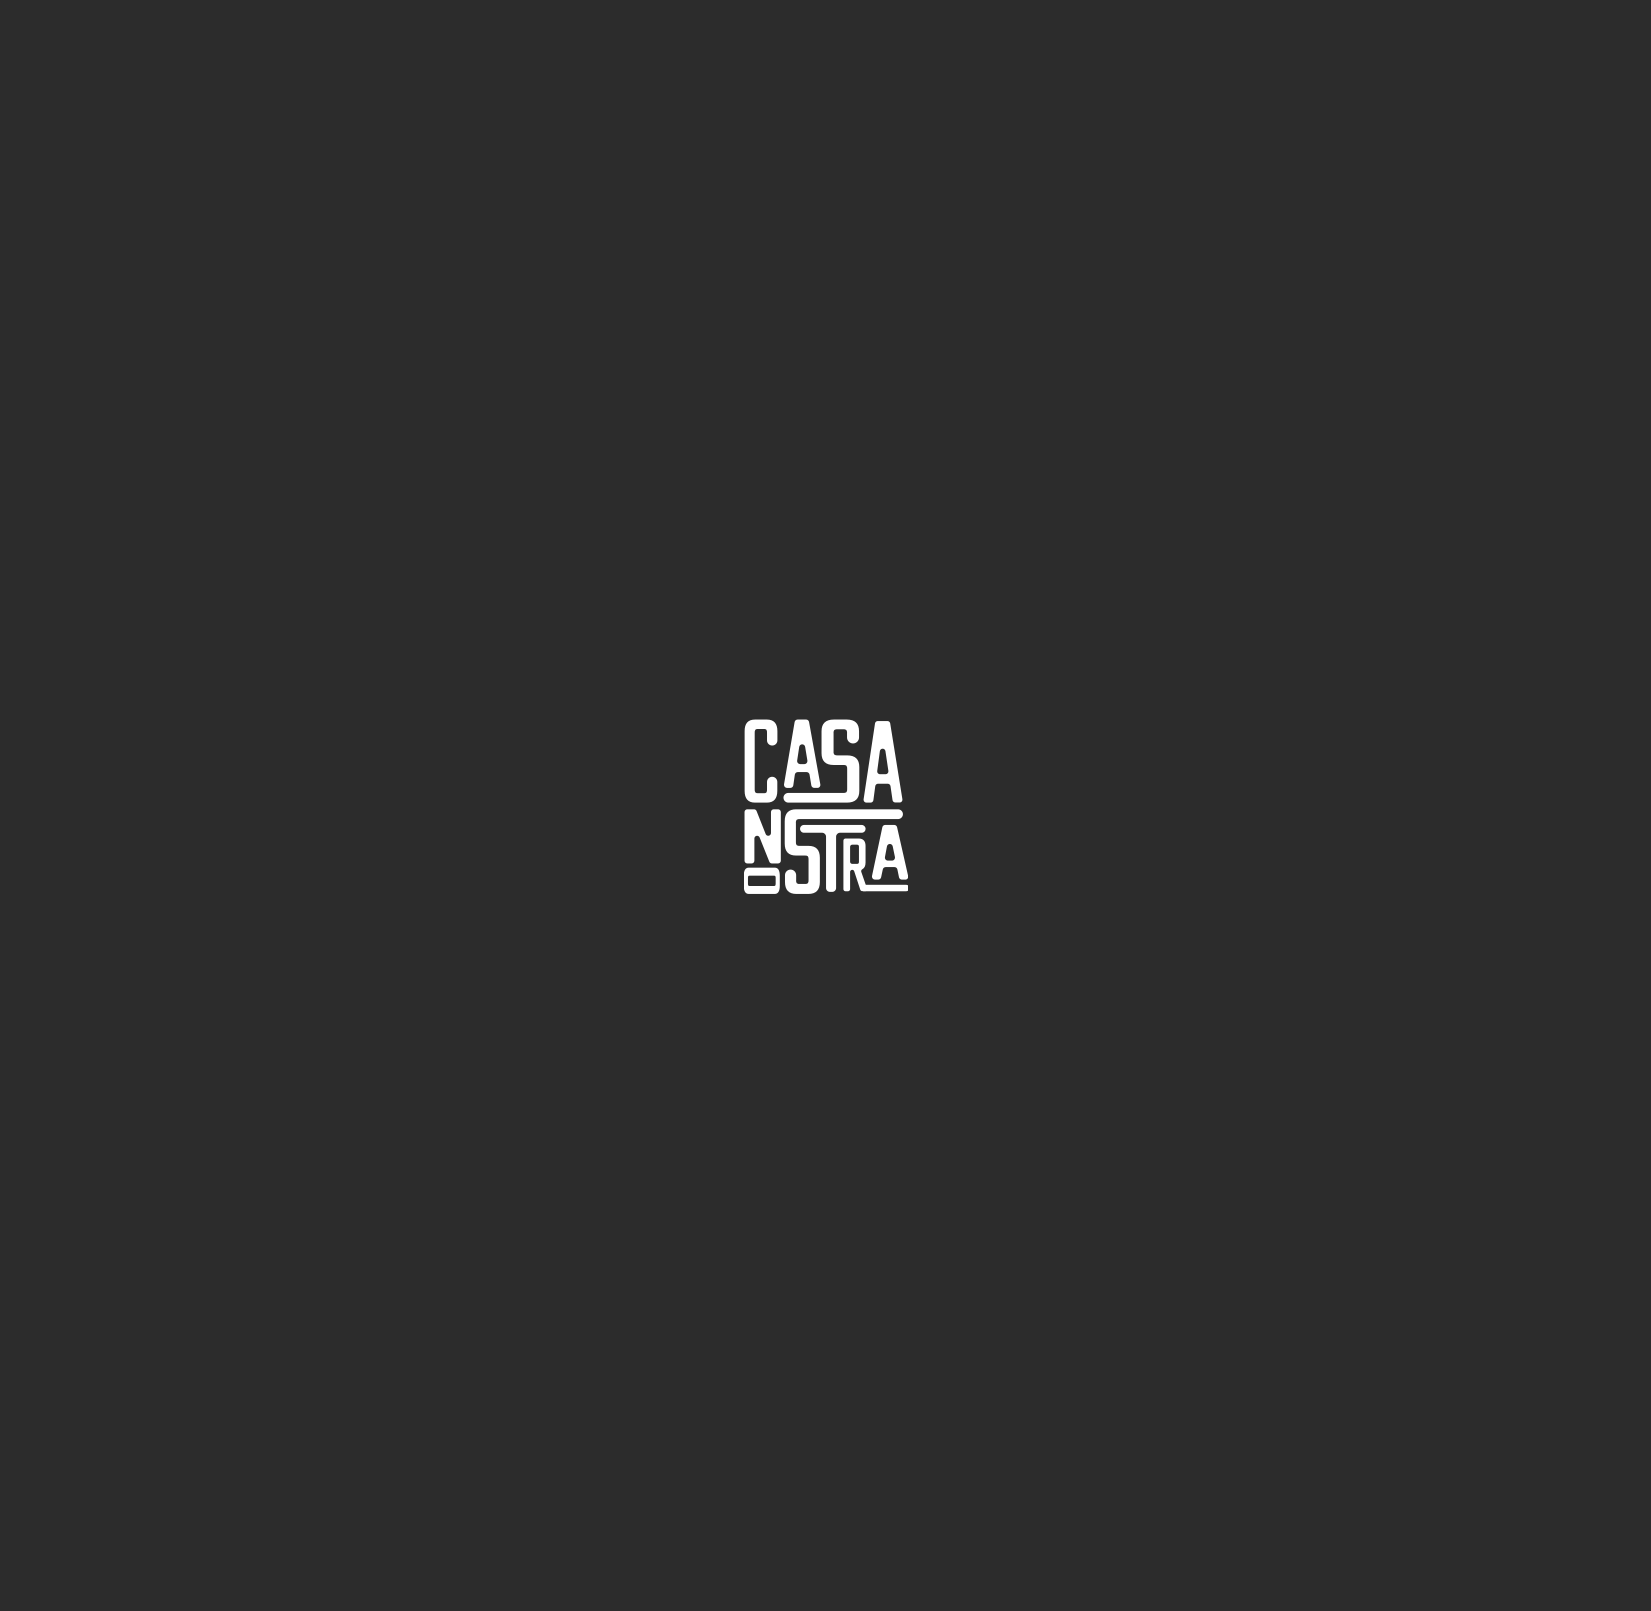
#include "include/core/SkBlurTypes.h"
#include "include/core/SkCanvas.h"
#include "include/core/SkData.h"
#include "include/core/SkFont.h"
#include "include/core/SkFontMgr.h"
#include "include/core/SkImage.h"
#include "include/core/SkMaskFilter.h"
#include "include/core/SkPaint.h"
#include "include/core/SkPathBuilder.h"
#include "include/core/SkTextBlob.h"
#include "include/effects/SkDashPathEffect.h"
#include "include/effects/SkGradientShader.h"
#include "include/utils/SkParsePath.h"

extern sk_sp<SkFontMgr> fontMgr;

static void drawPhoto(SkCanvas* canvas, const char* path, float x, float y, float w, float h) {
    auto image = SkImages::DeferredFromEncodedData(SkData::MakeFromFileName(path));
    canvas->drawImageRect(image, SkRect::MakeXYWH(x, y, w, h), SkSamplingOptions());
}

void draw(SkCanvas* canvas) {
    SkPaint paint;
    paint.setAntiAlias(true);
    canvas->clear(0xFF2C2C2C);
    drawPhoto(canvas, "assets/img1.png", 744, 719, 164, 175);
}
